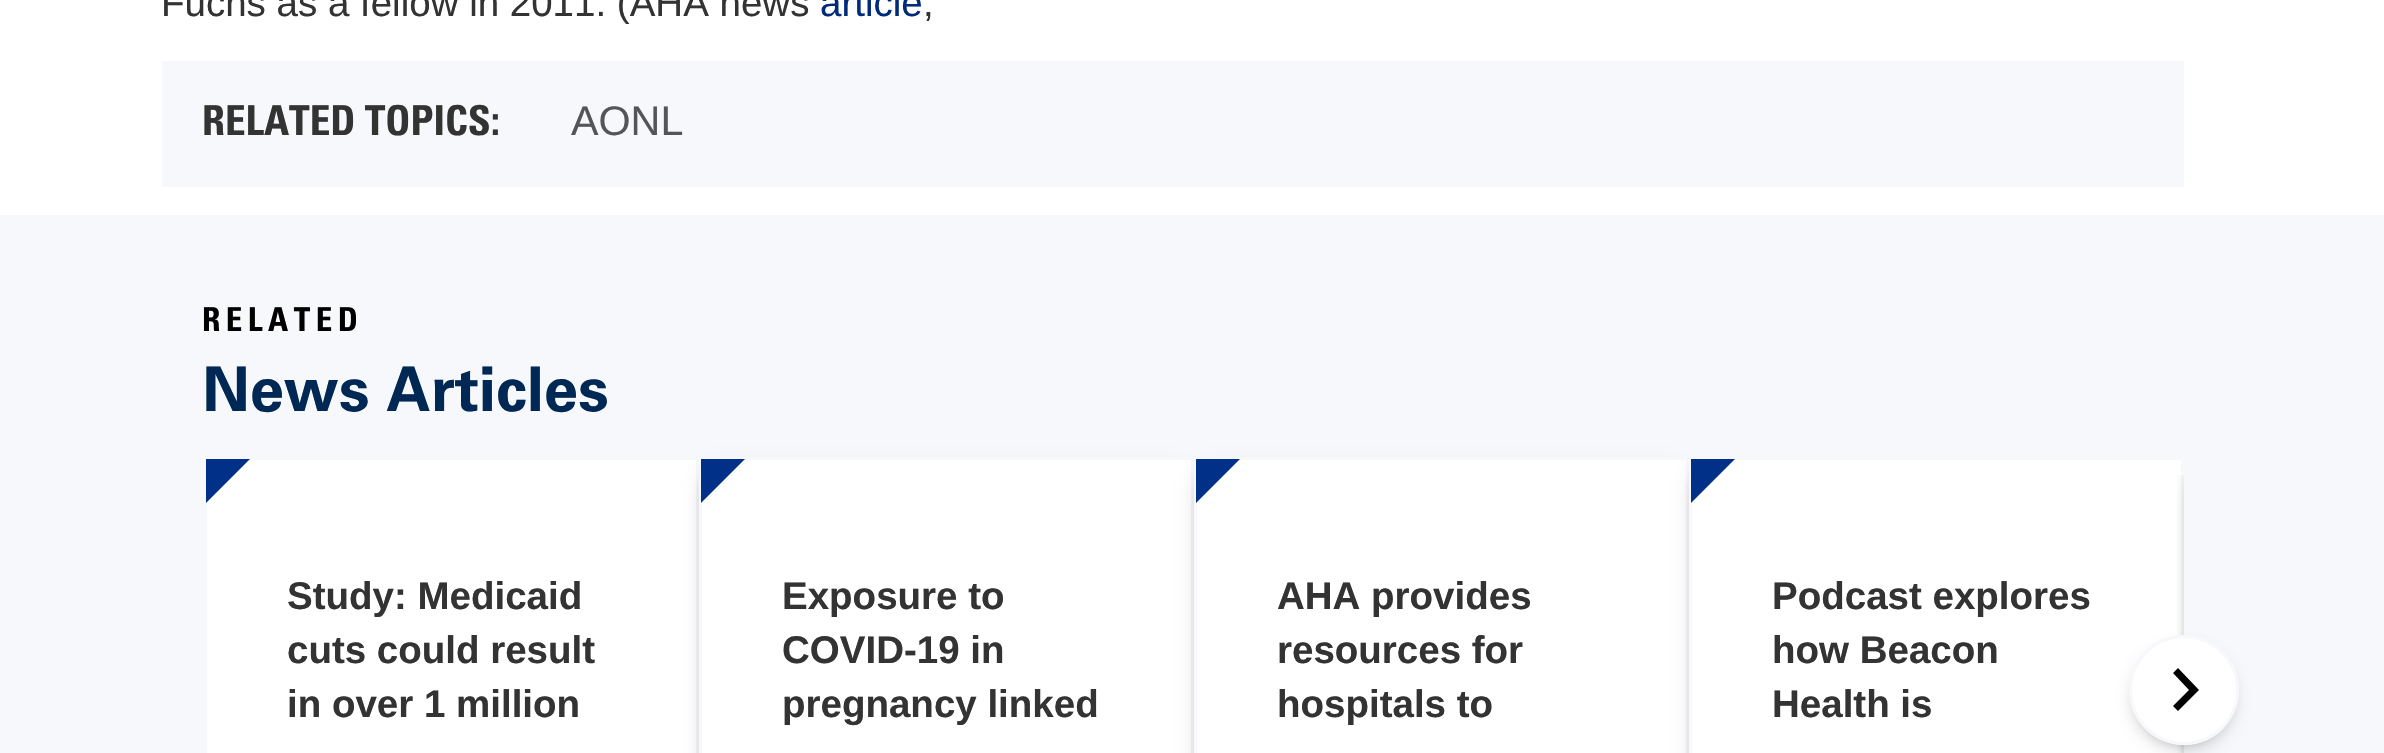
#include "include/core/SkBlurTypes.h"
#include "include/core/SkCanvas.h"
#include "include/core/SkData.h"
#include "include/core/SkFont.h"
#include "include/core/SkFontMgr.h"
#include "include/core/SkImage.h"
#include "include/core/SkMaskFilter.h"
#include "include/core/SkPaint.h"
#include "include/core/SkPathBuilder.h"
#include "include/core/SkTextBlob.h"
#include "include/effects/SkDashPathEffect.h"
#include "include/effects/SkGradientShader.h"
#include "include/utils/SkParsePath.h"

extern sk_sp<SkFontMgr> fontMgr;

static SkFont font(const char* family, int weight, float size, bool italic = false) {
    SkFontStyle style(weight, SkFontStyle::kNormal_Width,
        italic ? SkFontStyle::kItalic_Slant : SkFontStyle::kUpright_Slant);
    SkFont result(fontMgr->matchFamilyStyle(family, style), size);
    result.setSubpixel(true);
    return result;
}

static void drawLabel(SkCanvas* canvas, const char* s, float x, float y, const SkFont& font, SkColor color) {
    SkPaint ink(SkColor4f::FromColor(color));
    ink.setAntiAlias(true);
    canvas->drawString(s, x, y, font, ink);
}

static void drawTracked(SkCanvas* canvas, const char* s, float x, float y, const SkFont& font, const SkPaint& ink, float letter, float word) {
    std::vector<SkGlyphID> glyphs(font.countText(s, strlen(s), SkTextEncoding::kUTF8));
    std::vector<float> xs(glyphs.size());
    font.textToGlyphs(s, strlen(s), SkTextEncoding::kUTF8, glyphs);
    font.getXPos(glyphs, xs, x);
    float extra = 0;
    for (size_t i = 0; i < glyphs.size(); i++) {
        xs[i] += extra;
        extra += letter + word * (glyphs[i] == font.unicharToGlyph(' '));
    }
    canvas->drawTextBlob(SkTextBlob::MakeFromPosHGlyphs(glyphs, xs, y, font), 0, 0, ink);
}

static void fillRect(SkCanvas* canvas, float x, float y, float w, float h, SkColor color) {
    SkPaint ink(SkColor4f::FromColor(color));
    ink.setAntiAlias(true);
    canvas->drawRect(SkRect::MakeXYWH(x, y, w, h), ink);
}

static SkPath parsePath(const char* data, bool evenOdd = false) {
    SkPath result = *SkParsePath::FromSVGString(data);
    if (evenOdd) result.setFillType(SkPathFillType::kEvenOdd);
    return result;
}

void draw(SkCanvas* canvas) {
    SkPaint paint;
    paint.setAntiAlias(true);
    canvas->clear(0xFFFFFFFF);
    SkFont font1 = font("Liberation Sans", 400, 38.5f);
    drawLabel(canvas, "Fuchs as a fellow in 2011. (AHA news", 161, 16, font1, 0xFF333333);
    drawLabel(canvas, "article", 820, 16, font1, 0xFF002B7A);
    drawLabel(canvas, ",", 923, 16, font1, 0xFF333333);
    fillRect(canvas, 162, 61, 2022, 126, 0xFFF7F8FB);
    SkFont font2 = font("Univers", 700, 41.25f);
    drawLabel(canvas, "RELATED TOPICS:", 202, 135, font2, 0xFF333333);
    SkFont font3 = font("Liberation Sans", 400, 41.25f);
    drawLabel(canvas, "AONL", 571, 135, font3, 0xFF545559);
    fillRect(canvas, 0, 215, 2384, 538, 0xFFF7F8FB);
    SkFont font4 = font("Univers", 700, 33);
    paint.setColor(0xFF000000);
    drawTracked(canvas, "RELATED", 202, 331, font4, paint, 5.5f, 0);
    SkFont font5 = font("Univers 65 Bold", 700, 61.5f);
    drawLabel(canvas, "News Articles", 202, 411, font5, 0xFF002855);
    fillRect(canvas, 207, 460, 489, 293, 0xFFFFFFFF);
    paint.setColor(0xFF003087);
    canvas->drawPath(parsePath("M206 459H250L206 503Z"), paint);
    SkFont font6 = font("Liberation Sans", 700, 38.5f);
    drawLabel(canvas, "Study: Medicaid", 287, 609, font6, 0xFF333333);
    drawLabel(canvas, "cuts could result", 287, 663, font6, 0xFF333333);
    drawLabel(canvas, "in over 1 million", 287, 717, font6, 0xFF333333);
    paint.setColor(0x99000000);
    paint.setMaskFilter(SkMaskFilter::MakeBlur(kNormal_SkBlurStyle, 11));
    canvas->drawRect(SkRect::MakeXYWH(712, 479, 468, 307), paint);
    paint.setMaskFilter(nullptr);
    paint.setColor(0xFFFFFFFF);
    canvas->drawRect(SkRect::MakeXYWH(700.5f, 458.5f, 492, 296), paint);
    paint.setStroke(true);
    paint.setStrokeWidth(3);
    paint.setColor(0xFFF7F8FB);
    canvas->drawRect(SkRect::MakeXYWH(700.5f, 458.5f, 492, 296), paint);
    paint.setStroke(false);
    paint.setColor(0xFF003087);
    canvas->drawPath(parsePath("M701 459H745L701 503Z"), paint);
    drawLabel(canvas, "Exposure to", 782, 609, font6, 0xFF333333);
    drawLabel(canvas, "COVID-19 in", 782, 663, font6, 0xFF333333);
    drawLabel(canvas, "pregnancy linked", 782, 717, font6, 0xFF333333);
    paint.setColor(0x99000000);
    paint.setMaskFilter(SkMaskFilter::MakeBlur(kNormal_SkBlurStyle, 11));
    canvas->drawRect(SkRect::MakeXYWH(1207, 479, 468, 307), paint);
    paint.setMaskFilter(nullptr);
    paint.setColor(0xFFFFFFFF);
    canvas->drawRect(SkRect::MakeXYWH(1195.5f, 458.5f, 492, 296), paint);
    paint.setStroke(true);
    paint.setColor(0xFFF7F8FB);
    canvas->drawRect(SkRect::MakeXYWH(1195.5f, 458.5f, 492, 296), paint);
    paint.setStroke(false);
    paint.setColor(0xFF003087);
    canvas->drawPath(parsePath("M1196 459H1240L1196 503Z"), paint);
    drawLabel(canvas, "AHA provides", 1277, 609, font6, 0xFF333333);
    drawLabel(canvas, "resources for", 1277, 663, font6, 0xFF333333);
    drawLabel(canvas, "hospitals to", 1277, 717, font6, 0xFF333333);
    canvas->save();
    canvas->clipRect(SkRect::MakeXYWH(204, 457, 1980, 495));
    paint.setColor(0x99000000);
    paint.setMaskFilter(SkMaskFilter::MakeBlur(kNormal_SkBlurStyle, 11));
    canvas->drawRect(SkRect::MakeXYWH(1702, 479, 468, 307), paint);
    paint.setMaskFilter(nullptr);
    canvas->restore();
    paint.setColor(0xFFFFFFFF);
    canvas->drawRect(SkRect::MakeXYWH(1690.5f, 458.5f, 492, 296), paint);
    paint.setStroke(true);
    paint.setColor(0xFFF7F8FB);
    canvas->drawRect(SkRect::MakeXYWH(1690.5f, 458.5f, 492, 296), paint);
    paint.setStroke(false);
    paint.setColor(0xFF003087);
    canvas->drawPath(parsePath("M1691 459H1735L1691 503Z"), paint);
    drawLabel(canvas, "Podcast explores", 1772, 609, font6, 0xFF333333);
    drawLabel(canvas, "how Beacon", 1772, 663, font6, 0xFF333333);
    drawLabel(canvas, "Health is", 1772, 717, font6, 0xFF333333);
    canvas->save();
    canvas->clipRect(SkRect::MakeXYWH(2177, 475, 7, 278));
    paint.setColor(0x99000000);
    paint.setMaskFilter(SkMaskFilter::MakeBlur(kNormal_SkBlurStyle, 11));
    canvas->drawRect(SkRect::MakeXYWH(2197, 479, 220, 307), paint);
    paint.setMaskFilter(nullptr);
    canvas->restore();
    paint.setMaskFilter(SkMaskFilter::MakeBlur(kNormal_SkBlurStyle, 11));
    canvas->drawRoundRect(SkRect::MakeXYWH(2142, 657, 83, 83), 41.5f, 41.5f, paint);
    paint.setMaskFilter(nullptr);
    paint.setColor(0xFFFFFFFF);
    canvas->drawCircle(2184, 690, 55, paint);
    paint.setColor(0xFF000000);
    canvas->drawPath(parsePath("M2178 668L2173 673L2189 690L2173 706L2178 711L2199 690Z", true), paint);
    paint.setStroke(true);
    paint.setColor(0xFFF7F8FB);
    canvas->drawCircle(2184, 690, 53.5f, paint);
}
